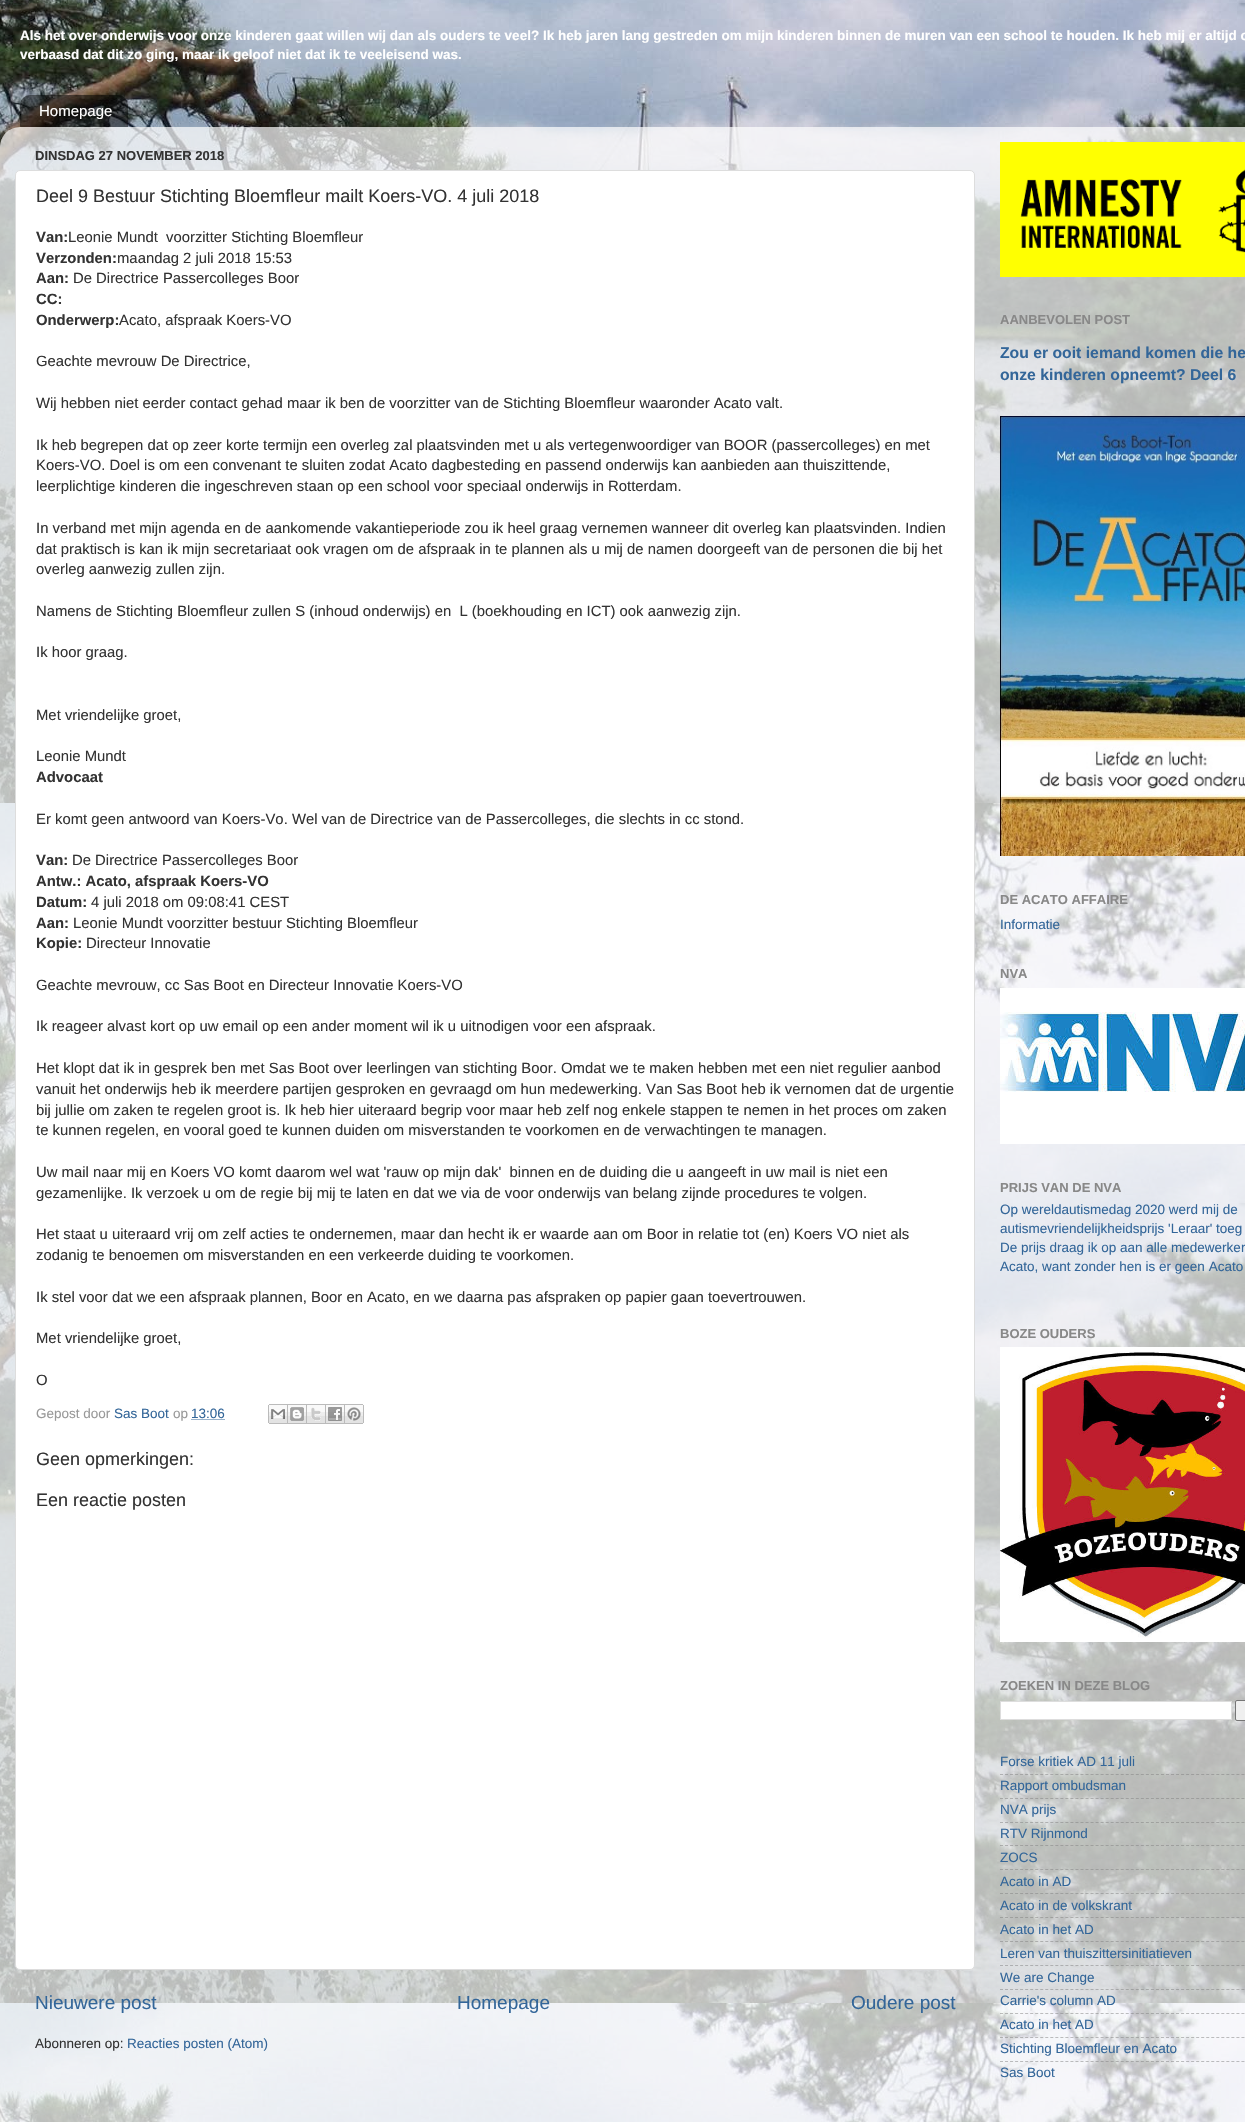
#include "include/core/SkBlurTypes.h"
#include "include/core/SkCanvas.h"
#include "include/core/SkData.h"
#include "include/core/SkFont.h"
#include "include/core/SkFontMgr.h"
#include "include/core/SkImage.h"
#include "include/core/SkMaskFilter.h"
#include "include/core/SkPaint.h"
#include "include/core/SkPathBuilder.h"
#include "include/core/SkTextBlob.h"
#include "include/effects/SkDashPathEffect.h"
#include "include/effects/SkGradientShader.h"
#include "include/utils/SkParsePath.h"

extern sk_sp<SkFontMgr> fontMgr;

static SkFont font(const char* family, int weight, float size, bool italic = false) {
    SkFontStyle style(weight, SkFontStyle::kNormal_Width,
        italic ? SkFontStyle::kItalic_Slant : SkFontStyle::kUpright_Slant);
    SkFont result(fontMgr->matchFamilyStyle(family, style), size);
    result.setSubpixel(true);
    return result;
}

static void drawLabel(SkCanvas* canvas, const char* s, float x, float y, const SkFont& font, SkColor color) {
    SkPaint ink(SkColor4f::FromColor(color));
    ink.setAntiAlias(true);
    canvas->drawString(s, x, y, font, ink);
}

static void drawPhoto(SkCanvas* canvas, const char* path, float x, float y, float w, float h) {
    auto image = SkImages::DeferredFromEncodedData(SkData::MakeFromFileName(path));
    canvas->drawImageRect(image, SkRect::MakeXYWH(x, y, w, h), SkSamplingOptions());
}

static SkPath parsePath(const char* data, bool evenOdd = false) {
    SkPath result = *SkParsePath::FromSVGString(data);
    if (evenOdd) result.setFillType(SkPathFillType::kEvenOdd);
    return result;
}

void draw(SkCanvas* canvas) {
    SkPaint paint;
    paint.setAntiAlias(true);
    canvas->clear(0xFFFFFFFF);
    drawPhoto(canvas, "assets/img1.png", 0, 0, 1245, 2122);
    SkFont font1 = font("Liberation Sans", 700, 13.5f);
    drawLabel(canvas, "Als het over onderwijs voor onze kinderen gaat willen wij dan als ouders te veel? Ik heb jaren lang gestreden om mijn kinderen binnen de muren van een school te houden. Ik heb mij er altijd o", 20, 40, font1, 0xFFFFFFFF);
    drawLabel(canvas, "verbaasd dat dit zo ging, maar ik geloof niet dat ik te veeleisend was.", 20, 59, font1, 0xFFFFFFFF);
    drawPhoto(canvas, "assets/img2.png", 20, 95, 108, 32);
    SkFont font2 = font("Liberation Sans", 400, 15);
    drawLabel(canvas, "Homepage", 39, 116, font2, 0xFFFFFFFF);
    drawPhoto(canvas, "assets/img3.png", 0, 127, 1245, 1995);
    SkFont font3 = font("Liberation Sans", 700, 13);
    drawLabel(canvas, "DINSDAG 27 NOVEMBER 2018", 35, 160, font3, 0xFF333333);
    paint.setColor(0xFFFFFFFF);
    canvas->drawRoundRect(SkRect::MakeXYWH(15.5f, 170.5f, 959, 1799), 4.5f, 4.5f, paint);
    paint.setStroke(true);
    paint.setStrokeWidth(1);
    paint.setColor(0xFFDDDDDD);
    canvas->drawRoundRect(SkRect::MakeXYWH(15.5f, 170.5f, 959, 1799), 4.5f, 4.5f, paint);
    SkFont font4 = font("Liberation Sans", 400, 18);
    drawLabel(canvas, "Deel 9 Bestuur Stichting Bloemfleur mailt Koers-VO. 4 juli 2018", 36, 202, font4, 0xFF333333);
    SkFont font5 = font("Liberation Sans", 700, 14.85f);
    drawLabel(canvas, "Van:", 36, 242, font5, 0xFF333333);
    SkFont font6 = font("Liberation Sans", 400, 14.85f);
    drawLabel(canvas, "Leonie Mundt", 68, 242, font6, 0xFF333333);
    drawLabel(canvas, "voorzitter Stichting Bloemfleur", 166, 242, font6, 0xFF333333);
    drawLabel(canvas, "Verzonden:", 36, 263, font5, 0xFF333333);
    drawLabel(canvas, "maandag 2 juli 2018 15:53", 117, 263, font6, 0xFF333333);
    drawLabel(canvas, "Aan:", 36, 283, font5, 0xFF333333);
    drawLabel(canvas, "De Directrice Passercolleges Boor", 73, 283, font6, 0xFF333333);
    drawLabel(canvas, "CC:", 36, 304, font5, 0xFF333333);
    drawLabel(canvas, "Onderwerp:", 36, 325, font5, 0xFF333333);
    drawLabel(canvas, "Acato, afspraak Koers-VO", 119, 325, font6, 0xFF333333);
    drawLabel(canvas, "Geachte mevrouw De Directrice,", 36, 366, font6, 0xFF333333);
    drawLabel(canvas, "Wij hebben niet eerder contact gehad maar ik ben de voorzitter van de Stichting Bloemfleur waaronder Acato valt.", 36, 408, font6, 0xFF333333);
    drawLabel(canvas, "Ik heb begrepen dat op zeer korte termijn een overleg zal plaatsvinden met u als vertegenwoordiger van BOOR (passercolleges) en met", 36, 450, font6, 0xFF333333);
    drawLabel(canvas, "Koers-VO. Doel is om een convenant te sluiten zodat Acato dagbesteding en passend onderwijs kan aanbieden aan thuiszittende,", 36, 470, font6, 0xFF333333);
    drawLabel(canvas, "leerplichtige kinderen die ingeschreven staan op een school voor speciaal onderwijs in Rotterdam.", 36, 491, font6, 0xFF333333);
    drawLabel(canvas, "In verband met mijn agenda en de aankomende vakantieperiode zou ik heel graag vernemen wanneer dit overleg kan plaatsvinden. Indien", 36, 533, font6, 0xFF333333);
    drawLabel(canvas, "dat praktisch is kan ik mijn secretariaat ook vragen om de afspraak in te plannen als u mij de namen doorgeeft van de personen die bij het", 36, 554, font6, 0xFF333333);
    drawLabel(canvas, "overleg aanwezig zullen zijn.", 36, 574, font6, 0xFF333333);
    drawLabel(canvas, "Namens de Stichting Bloemfleur zullen S (inhoud onderwijs) en  L (boekhouding en ICT) ook aanwezig zijn.", 36, 616, font6, 0xFF333333);
    drawLabel(canvas, "Ik hoor graag.", 36, 657, font6, 0xFF333333);
    drawLabel(canvas, "Met vriendelijke groet,", 36, 720, font6, 0xFF333333);
    drawLabel(canvas, "Leonie Mundt", 36, 761, font6, 0xFF333333);
    drawLabel(canvas, "Advocaat", 36, 782, font5, 0xFF333333);
    drawLabel(canvas, "Er komt geen antwoord van Koers-Vo. Wel van de Directrice van de Passercolleges, die slechts in cc stond.", 36, 824, font6, 0xFF333333);
    drawLabel(canvas, "Van:", 36, 865, font5, 0xFF333333);
    drawLabel(canvas, "De Directrice Passercolleges Boor", 72, 865, font6, 0xFF333333);
    drawLabel(canvas, "Antw.: Acato, afspraak Koers-VO", 36, 886, font5, 0xFF333333);
    drawLabel(canvas, "Datum:", 36, 907, font5, 0xFF333333);
    drawLabel(canvas, "4 juli 2018 om 09:08:41 CEST", 91, 907, font6, 0xFF333333);
    drawLabel(canvas, "Aan:", 36, 928, font5, 0xFF333333);
    drawLabel(canvas, "Leonie Mundt voorzitter bestuur Stichting Bloemfleur", 73, 928, font6, 0xFF333333);
    drawLabel(canvas, "Kopie:", 36, 948, font5, 0xFF333333);
    drawLabel(canvas, "Directeur Innovatie", 86, 948, font6, 0xFF333333);
    drawLabel(canvas, "Geachte mevrouw, cc Sas Boot en Directeur Innovatie Koers-VO", 36, 990, font6, 0xFF333333);
    drawLabel(canvas, "Ik reageer alvast kort op uw email op een ander moment wil ik u uitnodigen voor een afspraak.", 36, 1031, font6, 0xFF333333);
    drawLabel(canvas, "Het klopt dat ik in gesprek ben met Sas Boot over leerlingen van stichting Boor. Omdat we te maken hebben met een niet regulier aanbod", 36, 1073, font6, 0xFF333333);
    drawLabel(canvas, "vanuit het onderwijs heb ik meerdere partijen gesproken en gevraagd om hun medewerking. Van Sas Boot heb ik vernomen dat de urgentie", 36, 1094, font6, 0xFF333333);
    drawLabel(canvas, "bij jullie om zaken te regelen groot is. Ik heb hier uiteraard begrip voor maar heb zelf nog enkele stappen te nemen in het proces om zaken", 36, 1115, font6, 0xFF333333);
    drawLabel(canvas, "te kunnen regelen, en vooral goed te kunnen duiden om misverstanden te voorkomen en de verwachtingen te managen.", 36, 1135, font6, 0xFF333333);
    drawLabel(canvas, "Uw mail naar mij en Koers VO komt daarom wel wat 'rauw op mijn dak'  binnen en de duiding die u aangeeft in uw mail is niet een", 36, 1177, font6, 0xFF333333);
    drawLabel(canvas, "gezamenlijke. Ik verzoek u om de regie bij mij te laten en dat we via de voor onderwijs van belang zijnde procedures te volgen.", 36, 1198, font6, 0xFF333333);
    drawLabel(canvas, "Het staat u uiteraard vrij om zelf acties te ondernemen, maar dan hecht ik er waarde aan om Boor in relatie tot (en) Koers VO niet als", 36, 1239, font6, 0xFF333333);
    drawLabel(canvas, "zodanig te benoemen om misverstanden en een verkeerde duiding te voorkomen.", 36, 1260, font6, 0xFF333333);
    drawLabel(canvas, "Ik stel voor dat we een afspraak plannen, Boor en Acato, en we daarna pas afspraken op papier gaan toevertrouwen.", 36, 1302, font6, 0xFF333333);
    drawLabel(canvas, "Met vriendelijke groet,", 36, 1343, font6, 0xFF333333);
    drawLabel(canvas, "O", 36, 1385, font6, 0xFF333333);
    SkFont font7 = font("Liberation Sans", 400, 13.5f);
    drawLabel(canvas, "Gepost door", 36, 1418, font7, 0xFF999999);
    drawLabel(canvas, "Sas Boot", 114, 1418, font7, 0xFF336699);
    drawLabel(canvas, "op", 173, 1418, font7, 0xFF999999);
    paint.setColor(0xFF336699);
    paint.setPathEffect(SkDashPathEffect::Make({{1, 1}}, 0));
    canvas->drawPath(parsePath("M191.5 1419.5H225"), paint);
    paint.setPathEffect(nullptr);
    drawLabel(canvas, "13:06", 191, 1418, font7, 0xFF336699);
    drawPhoto(canvas, "assets/img4.png", 268, 1404, 20, 20);
    drawPhoto(canvas, "assets/img5.png", 288, 1404, 19, 20);
    drawPhoto(canvas, "assets/img6.png", 307, 1404, 19, 20);
    drawPhoto(canvas, "assets/img7.png", 326, 1404, 19, 20);
    drawPhoto(canvas, "assets/img8.png", 345, 1404, 19, 20);
    drawLabel(canvas, "Geen opmerkingen:", 36, 1465, font4, 0xFF333333);
    drawLabel(canvas, "Een reactie posten", 36, 1506, font4, 0xFF333333);
    SkFont font8 = font("Liberation Sans", 400, 19);
    drawLabel(canvas, "Nieuwere post", 35, 2009, font8, 0xFF336699);
    drawLabel(canvas, "Homepage", 457, 2009, font8, 0xFF336699);
    drawLabel(canvas, "Oudere post", 851, 2009, font8, 0xFF336699);
    drawLabel(canvas, "Abonneren op:", 35, 2048, font7, 0xFF333333);
    drawLabel(canvas, "Reacties posten (Atom)", 127, 2048, font7, 0xFF336699);
    drawPhoto(canvas, "assets/img9.png", 1000, 142, 245, 135);
    drawLabel(canvas, "AANBEVOLEN POST", 1000, 324, font3, 0xFF888888);
    SkFont font9 = font("Liberation Sans", 700, 15.75f);
    drawLabel(canvas, "Zou er ooit iemand komen die he", 1000, 358, font9, 0xFF336699);
    drawLabel(canvas, "onze kinderen opneemt? Deel 6", 1000, 380, font9, 0xFF336699);
    drawPhoto(canvas, "assets/img10.png", 1000, 416, 245, 440);
    drawLabel(canvas, "DE ACATO AFFAIRE", 1000, 904, font3, 0xFF888888);
    drawLabel(canvas, "Informatie", 1000, 929, font7, 0xFF336699);
    drawLabel(canvas, "NVA", 1000, 978, font3, 0xFF888888);
    drawPhoto(canvas, "assets/img11.png", 1000, 988, 245, 156);
    drawLabel(canvas, "PRIJS VAN DE NVA", 1000, 1192, font3, 0xFF888888);
    drawLabel(canvas, "Op wereldautismedag 2020 werd mij de", 1000, 1214, font7, 0xFF336699);
    drawLabel(canvas, "autismevriendelijkheidsprijs 'Leraar' toeg", 1000, 1233, font7, 0xFF336699);
    drawLabel(canvas, "De prijs draag ik op aan alle medewerker", 1000, 1252, font7, 0xFF336699);
    drawLabel(canvas, "Acato, want zonder hen is er geen Acato", 1000, 1271, font7, 0xFF336699);
    drawLabel(canvas, "BOZE OUDERS", 1000, 1338, font3, 0xFF888888);
    drawPhoto(canvas, "assets/img12.png", 1000, 1347, 245, 295);
    drawLabel(canvas, "ZOEKEN IN DEZE BLOG", 1000, 1690, font3, 0xFF888888);
    paint.setStroke(false);
    paint.setColor(0xFFFFFFFF);
    canvas->drawRect(SkRect::MakeXYWH(1000.5f, 1701.5f, 231, 18), paint);
    paint.setStroke(true);
    paint.setColor(0xFFDDDDDD);
    canvas->drawRect(SkRect::MakeXYWH(1000.5f, 1701.5f, 231, 18), paint);
    paint.setStroke(false);
    paint.setColor(0xFFEFEFEF);
    canvas->drawRoundRect(SkRect::MakeXYWH(1235.5f, 1700.5f, 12, 20), 1.5f, 1.5f, paint);
    paint.setStroke(true);
    paint.setColor(0xFF767676);
    canvas->drawRoundRect(SkRect::MakeXYWH(1235.5f, 1700.5f, 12, 20), 1.5f, 1.5f, paint);
    drawLabel(canvas, "Forse kritiek AD 11 juli", 1000, 1766, font7, 0xFF336699);
    paint.setColor(0x80808080);
    paint.setPathEffect(SkDashPathEffect::Make({{3, 2.03f}}, 0));
    canvas->drawPath(parsePath("M1000 1774.5H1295"), paint);
    paint.setPathEffect(nullptr);
    drawLabel(canvas, "Rapport ombudsman", 1000, 1790, font7, 0xFF336699);
    paint.setPathEffect(SkDashPathEffect::Make({{3, 2.03f}}, 0));
    canvas->drawPath(parsePath("M1000 1798.5H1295"), paint);
    paint.setPathEffect(nullptr);
    drawLabel(canvas, "NVA prijs", 1000, 1814, font7, 0xFF336699);
    paint.setPathEffect(SkDashPathEffect::Make({{3, 2.03f}}, 0));
    canvas->drawPath(parsePath("M1000 1822.5H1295"), paint);
    paint.setPathEffect(nullptr);
    drawLabel(canvas, "RTV Rijnmond", 1000, 1838, font7, 0xFF336699);
    paint.setPathEffect(SkDashPathEffect::Make({{3, 2.03f}}, 0));
    canvas->drawPath(parsePath("M1000 1845.5H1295"), paint);
    paint.setPathEffect(nullptr);
    drawLabel(canvas, "ZOCS", 1000, 1862, font7, 0xFF336699);
    paint.setPathEffect(SkDashPathEffect::Make({{3, 2.03f}}, 0));
    canvas->drawPath(parsePath("M1000 1869.5H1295"), paint);
    paint.setPathEffect(nullptr);
    drawLabel(canvas, "Acato in AD", 1000, 1886, font7, 0xFF336699);
    paint.setPathEffect(SkDashPathEffect::Make({{3, 2.03f}}, 0));
    canvas->drawPath(parsePath("M1000 1893.5H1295"), paint);
    paint.setPathEffect(nullptr);
    drawLabel(canvas, "Acato in de volkskrant", 1000, 1910, font7, 0xFF336699);
    paint.setPathEffect(SkDashPathEffect::Make({{3, 2.03f}}, 0));
    canvas->drawPath(parsePath("M1000 1917.5H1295"), paint);
    paint.setPathEffect(nullptr);
    drawLabel(canvas, "Acato in het AD", 1000, 1934, font7, 0xFF336699);
    paint.setPathEffect(SkDashPathEffect::Make({{3, 2.03f}}, 0));
    canvas->drawPath(parsePath("M1000 1941.5H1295"), paint);
    paint.setPathEffect(nullptr);
    drawLabel(canvas, "Leren van thuiszittersinitiatieven", 1000, 1958, font7, 0xFF336699);
    paint.setPathEffect(SkDashPathEffect::Make({{3, 2.03f}}, 0));
    canvas->drawPath(parsePath("M1000 1965.5H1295"), paint);
    paint.setPathEffect(nullptr);
    drawLabel(canvas, "We are Change", 1000, 1982, font7, 0xFF336699);
    paint.setPathEffect(SkDashPathEffect::Make({{3, 2.03f}}, 0));
    canvas->drawPath(parsePath("M1000 1989.5H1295"), paint);
    paint.setPathEffect(nullptr);
    drawLabel(canvas, "Carrie's column AD", 1000, 2005, font7, 0xFF336699);
    paint.setPathEffect(SkDashPathEffect::Make({{3, 2.03f}}, 0));
    canvas->drawPath(parsePath("M1000 2013.5H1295"), paint);
    paint.setPathEffect(nullptr);
    drawLabel(canvas, "Acato in het AD", 1000, 2029, font7, 0xFF336699);
    paint.setPathEffect(SkDashPathEffect::Make({{3, 2.03f}}, 0));
    canvas->drawPath(parsePath("M1000 2037.5H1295"), paint);
    paint.setPathEffect(nullptr);
    drawLabel(canvas, "Stichting Bloemfleur en Acato", 1000, 2053, font7, 0xFF336699);
    paint.setPathEffect(SkDashPathEffect::Make({{3, 2.03f}}, 0));
    canvas->drawPath(parsePath("M1000 2061.5H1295"), paint);
    paint.setPathEffect(nullptr);
    drawLabel(canvas, "Sas Boot", 1000, 2077, font7, 0xFF336699);
}
